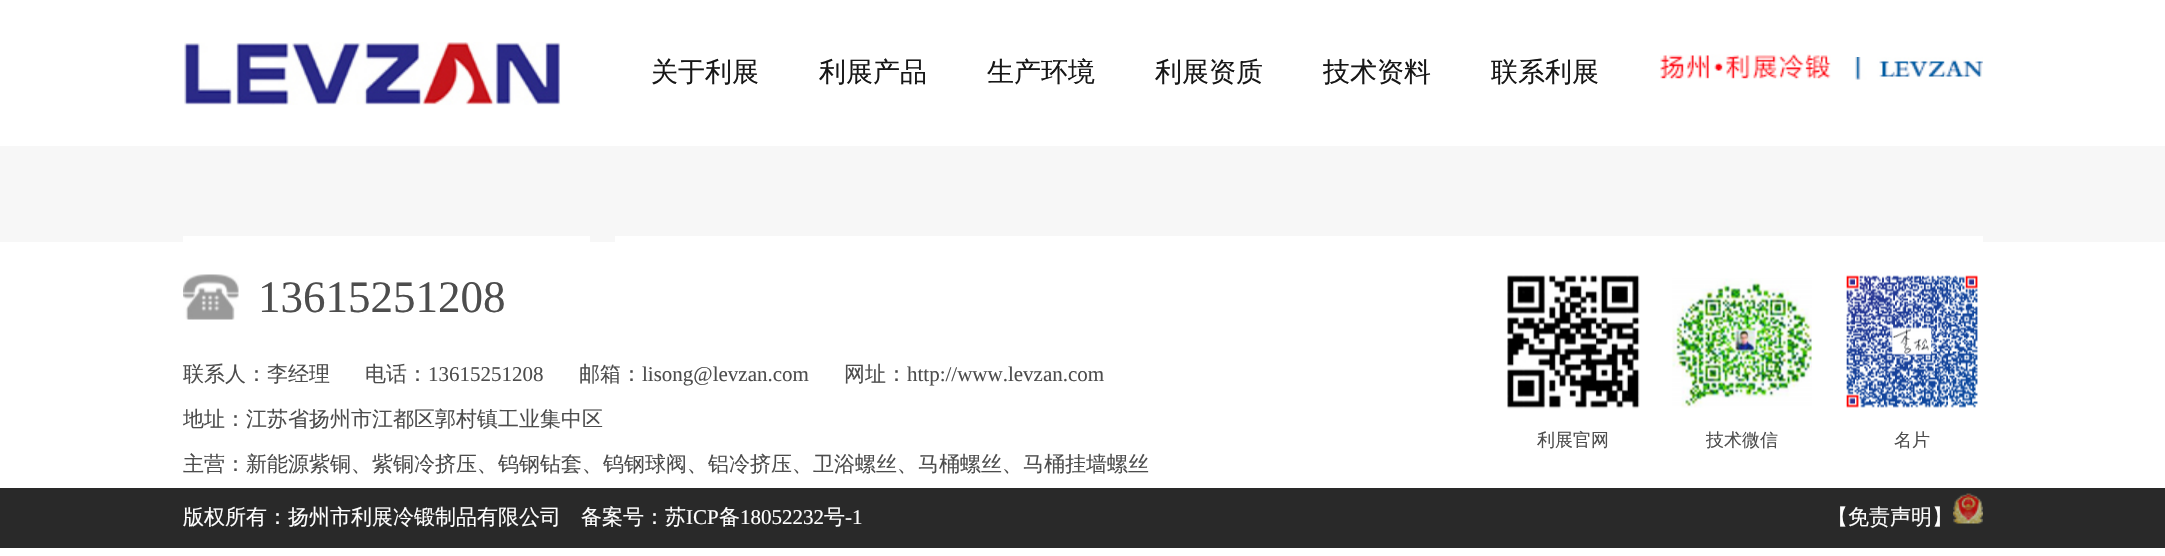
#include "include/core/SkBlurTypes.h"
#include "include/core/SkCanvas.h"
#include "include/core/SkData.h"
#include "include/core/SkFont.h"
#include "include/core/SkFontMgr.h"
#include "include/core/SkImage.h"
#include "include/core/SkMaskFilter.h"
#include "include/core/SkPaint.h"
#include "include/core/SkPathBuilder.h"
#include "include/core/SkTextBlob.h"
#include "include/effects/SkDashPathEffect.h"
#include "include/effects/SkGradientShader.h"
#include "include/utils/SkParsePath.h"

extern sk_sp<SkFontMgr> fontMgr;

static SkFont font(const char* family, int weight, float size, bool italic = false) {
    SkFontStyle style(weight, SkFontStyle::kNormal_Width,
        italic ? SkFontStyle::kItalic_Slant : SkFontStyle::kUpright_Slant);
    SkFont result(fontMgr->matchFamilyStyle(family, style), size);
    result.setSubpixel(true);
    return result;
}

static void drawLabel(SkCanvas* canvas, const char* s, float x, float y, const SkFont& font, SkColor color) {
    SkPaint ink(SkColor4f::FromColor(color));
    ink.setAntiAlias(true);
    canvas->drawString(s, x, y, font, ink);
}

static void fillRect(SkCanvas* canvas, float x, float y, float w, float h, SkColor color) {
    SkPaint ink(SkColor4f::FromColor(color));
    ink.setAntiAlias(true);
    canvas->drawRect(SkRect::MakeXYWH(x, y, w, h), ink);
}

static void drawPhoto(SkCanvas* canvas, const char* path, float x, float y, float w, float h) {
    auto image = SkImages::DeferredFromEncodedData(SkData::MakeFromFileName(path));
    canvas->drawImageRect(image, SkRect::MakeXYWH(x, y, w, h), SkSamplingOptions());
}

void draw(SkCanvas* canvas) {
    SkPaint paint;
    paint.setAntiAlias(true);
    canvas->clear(0xFFFFFFFF);
    drawPhoto(canvas, "assets/img1.png", 184, 42, 377, 63);
    SkFont font1 = font("WenQuanYi Zen Hei", 500, 27);
    drawLabel(canvas, "关于利展", 651, 81, font1, 0xFF171717);
    drawLabel(canvas, "利展产品", 819, 81, font1, 0xFF171717);
    drawLabel(canvas, "生产环境", 987, 81, font1, 0xFF171717);
    drawLabel(canvas, "利展资质", 1155, 81, font1, 0xFF171717);
    drawLabel(canvas, "技术资料", 1323, 81, font1, 0xFF171717);
    drawLabel(canvas, "联系利展", 1491, 81, font1, 0xFF171717);
    drawPhoto(canvas, "assets/img2.png", 1660, 54, 171, 26);
    drawPhoto(canvas, "assets/img3.png", 1855, 57, 128, 23);
    fillRect(canvas, 0, 146, 2165, 96, 0xFFF7F7F7);
    fillRect(canvas, 183, 236, 407, 6, 0xFFFFFFFF);
    fillRect(canvas, 615, 236, 1368, 6, 0xFFFFFFFF);
    drawPhoto(canvas, "assets/img4.png", 183, 274, 56, 46);
    SkFont font2 = font("Liberation Serif", 400, 45);
    drawLabel(canvas, "13615251208", 258, 312, font2, 0xFF4D4D4D);
    SkFont font3 = font("WenQuanYi Zen Hei", 500, 21);
    drawLabel(canvas, "联系人：李经理", 183, 381, font3, 0xFF4D4D4D);
    drawLabel(canvas, "电话：", 365, 381, font3, 0xFF4D4D4D);
    SkFont font4 = font("Liberation Serif", 400, 21);
    drawLabel(canvas, "13615251208", 428, 381, font4, 0xFF4D4D4D);
    drawLabel(canvas, "邮箱：", 579, 381, font3, 0xFF4D4D4D);
    drawLabel(canvas, "lisong@levzan.com", 642, 381, font4, 0xFF4D4D4D);
    drawLabel(canvas, "网址：", 844, 381, font3, 0xFF4D4D4D);
    drawLabel(canvas, "http://www.levzan.com", 907, 381, font4, 0xFF4D4D4D);
    drawLabel(canvas, "地址：江苏省扬州市江都区郭村镇工业集中区", 183, 426, font3, 0xFF4D4D4D);
    drawLabel(canvas, "主营：新能源紫铜、紫铜冷挤压、钨钢钻套、钨钢球阀、铝冷挤压、卫浴螺丝、马桶螺丝、马桶挂墙螺丝", 183, 471, font3, 0xFF4D4D4D);
    drawPhoto(canvas, "assets/img5.png", 1507, 275, 133, 134);
    SkFont font5 = font("WenQuanYi Zen Hei", 500, 18);
    drawLabel(canvas, "利展官网", 1537, 446, font5, 0xFF4D4D4D);
    drawPhoto(canvas, "assets/img6.png", 1672, 278, 140, 130);
    drawLabel(canvas, "技术微信", 1706, 446, font5, 0xFF4D4D4D);
    drawPhoto(canvas, "assets/img7.png", 1846, 275, 132, 133);
    drawLabel(canvas, "名片", 1894, 446, font5, 0xFF4D4D4D);
    fillRect(canvas, 0, 488, 2165, 60, 0xFF292929);
    drawLabel(canvas, "版权所有：扬州市利展冷锻制品有限公司", 183, 524, font3, 0xFFFFFFFF);
    drawLabel(canvas, "备案号：苏", 581, 524, font3, 0xFFFFFFFF);
    drawLabel(canvas, "ICP", 686, 524, font4, 0xFFFFFFFF);
    drawLabel(canvas, "备", 719, 524, font3, 0xFFFFFFFF);
    drawLabel(canvas, "18052232", 740, 524, font4, 0xFFFFFFFF);
    drawLabel(canvas, "号", 824, 524, font3, 0xFFFFFFFF);
    drawLabel(canvas, "-1", 845, 524, font4, 0xFFFFFFFF);
    drawLabel(canvas, "【免责声明】", 1827, 524, font3, 0xFFFFFFFF);
    drawPhoto(canvas, "assets/img8.png", 1953, 493, 30, 31);
}
